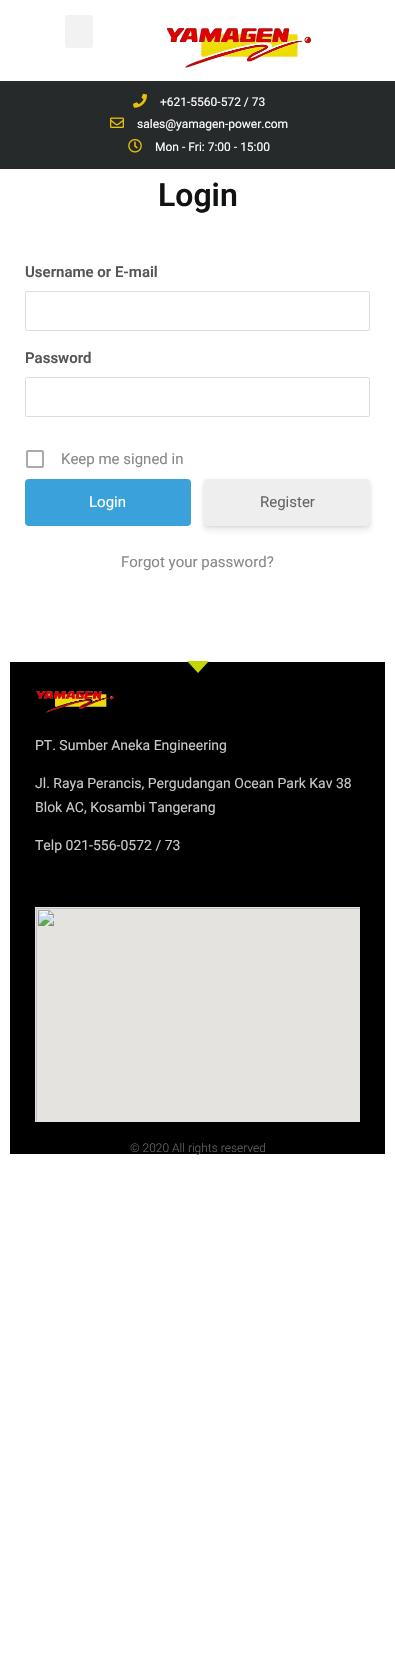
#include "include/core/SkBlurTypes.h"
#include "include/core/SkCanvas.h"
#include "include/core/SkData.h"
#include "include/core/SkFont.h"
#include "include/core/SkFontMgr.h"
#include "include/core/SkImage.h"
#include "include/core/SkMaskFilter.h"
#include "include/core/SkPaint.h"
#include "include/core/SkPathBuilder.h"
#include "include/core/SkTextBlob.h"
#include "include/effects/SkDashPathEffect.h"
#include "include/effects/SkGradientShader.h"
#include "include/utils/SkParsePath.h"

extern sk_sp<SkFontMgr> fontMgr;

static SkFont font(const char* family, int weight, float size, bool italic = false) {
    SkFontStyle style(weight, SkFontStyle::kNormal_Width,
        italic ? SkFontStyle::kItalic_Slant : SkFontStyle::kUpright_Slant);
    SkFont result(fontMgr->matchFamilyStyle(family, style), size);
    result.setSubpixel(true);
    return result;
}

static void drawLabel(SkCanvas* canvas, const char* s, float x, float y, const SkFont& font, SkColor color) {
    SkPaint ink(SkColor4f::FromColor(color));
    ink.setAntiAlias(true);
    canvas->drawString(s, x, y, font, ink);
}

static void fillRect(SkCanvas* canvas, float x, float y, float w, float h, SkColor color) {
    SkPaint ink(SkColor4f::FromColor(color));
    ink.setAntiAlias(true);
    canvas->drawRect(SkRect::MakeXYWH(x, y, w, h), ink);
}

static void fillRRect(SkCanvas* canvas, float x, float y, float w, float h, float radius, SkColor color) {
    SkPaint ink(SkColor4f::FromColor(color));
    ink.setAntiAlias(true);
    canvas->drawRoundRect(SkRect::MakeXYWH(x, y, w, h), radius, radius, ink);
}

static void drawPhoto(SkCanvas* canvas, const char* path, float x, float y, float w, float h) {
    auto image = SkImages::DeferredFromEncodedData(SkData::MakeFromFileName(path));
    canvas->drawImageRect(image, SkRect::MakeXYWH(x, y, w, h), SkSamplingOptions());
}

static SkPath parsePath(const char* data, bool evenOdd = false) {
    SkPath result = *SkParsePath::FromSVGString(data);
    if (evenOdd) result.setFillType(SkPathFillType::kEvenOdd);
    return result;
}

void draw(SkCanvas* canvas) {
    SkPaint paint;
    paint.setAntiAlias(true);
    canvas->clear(0xFFFFFFFF);
    fillRRect(canvas, 65, 15, 28, 33, 3, 0xFFF2F2F2);
    drawPhoto(canvas, "assets/img1.png", 166, 27, 146, 42);
    fillRect(canvas, 0, 81, 395, 88, 0xFF262A2B);
    drawPhoto(canvas, "assets/img2.png", 133, 93, 14, 15);
    SkFont font1 = font("Roboto", 400, 12);
    drawLabel(canvas, "+621-5560-572 / 73", 160, 106, font1, 0xFFFFFFFF);
    drawPhoto(canvas, "assets/img3.png", 110, 117, 14, 11);
    drawLabel(canvas, "sales@yamagen-power.com", 137, 128, font1, 0xFFFFFFFF);
    drawPhoto(canvas, "assets/img4.png", 128, 139, 14, 14);
    drawLabel(canvas, "Mon - Fri: 7:00 - 15:00", 155, 151, font1, 0xFFFFFFFF);
    SkFont font2 = font("Roboto", 600, 32);
    drawLabel(canvas, "Login", 158, 206, font2, 0xFF111212);
    SkFont font3 = font("Roboto", 600, 15);
    drawLabel(canvas, "Username or E-mail", 25, 277, font3, 0xFF555555);
    paint.setStroke(true);
    paint.setStrokeWidth(1);
    paint.setColor(0xFFDDDDDD);
    canvas->drawRoundRect(SkRect::MakeXYWH(25.5f, 291.5f, 344, 39), 1.5f, 1.5f, paint);
    drawLabel(canvas, "Password", 25, 363, font3, 0xFF555555);
    canvas->drawRoundRect(SkRect::MakeXYWH(25.5f, 377.5f, 344, 39), 1.5f, 1.5f, paint);
    drawPhoto(canvas, "assets/img5.png", 26, 450, 18, 18);
    SkFont font4 = font("Roboto", 400, 15);
    drawLabel(canvas, "Keep me signed in", 61, 464, font4, 0xFF888888);
    fillRRect(canvas, 25, 479, 166, 47, 4, 0xFF3BA1DA);
    drawLabel(canvas, "Login", 89, 507, font4, 0xFFFFFFFF);
    paint.setStroke(false);
    paint.setColor(0x14000000);
    paint.setMaskFilter(SkMaskFilter::MakeBlur(kNormal_SkBlurStyle, 1.5f));
    canvas->drawRoundRect(SkRect::MakeXYWH(204, 480, 166, 47), 4, 4, paint);
    paint.setMaskFilter(nullptr);
    paint.setColor(0x1C32325D);
    paint.setMaskFilter(SkMaskFilter::MakeBlur(kNormal_SkBlurStyle, 3));
    canvas->drawRoundRect(SkRect::MakeXYWH(204, 483, 166, 47), 4, 4, paint);
    paint.setMaskFilter(nullptr);
    fillRRect(canvas, 204, 479, 166, 47, 4, 0xFFEEEEEE);
    drawLabel(canvas, "Register", 260, 507, font4, 0xFF666666);
    drawLabel(canvas, "Forgot your password?", 121, 567, font4, 0xFF888888);
    fillRect(canvas, 10, 662, 375, 492, 0xFF000000);
    paint.setColor(0xFFC4D602);
    canvas->drawPath(parsePath("M198 673L187 661H209Z"), paint);
    drawPhoto(canvas, "assets/img6.png", 36, 691, 78, 22);
    SkFont font5 = font("Roboto", 400, 14);
    drawLabel(canvas, "PT. Sumber Aneka Engineering", 35, 750, font5, 0xFFC9C9C9);
    drawLabel(canvas, "Jl. Raya Perancis, Pergudangan Ocean Park Kav 38", 35, 788, font5, 0xFFC9C9C9);
    drawLabel(canvas, "Blok AC, Kosambi Tangerang", 35, 812, font5, 0xFFC9C9C9);
    drawLabel(canvas, "Telp 021-556-0572 / 73", 35, 850, font5, 0xFFC9C9C9);
    drawPhoto(canvas, "assets/img7.png", 35, 907, 325, 215);
    SkFont font6 = font("Roboto", 300, 12);
    drawLabel(canvas, "© 2020 All rights reserved", 130, 1152, font6, 0xFF666666);
}
